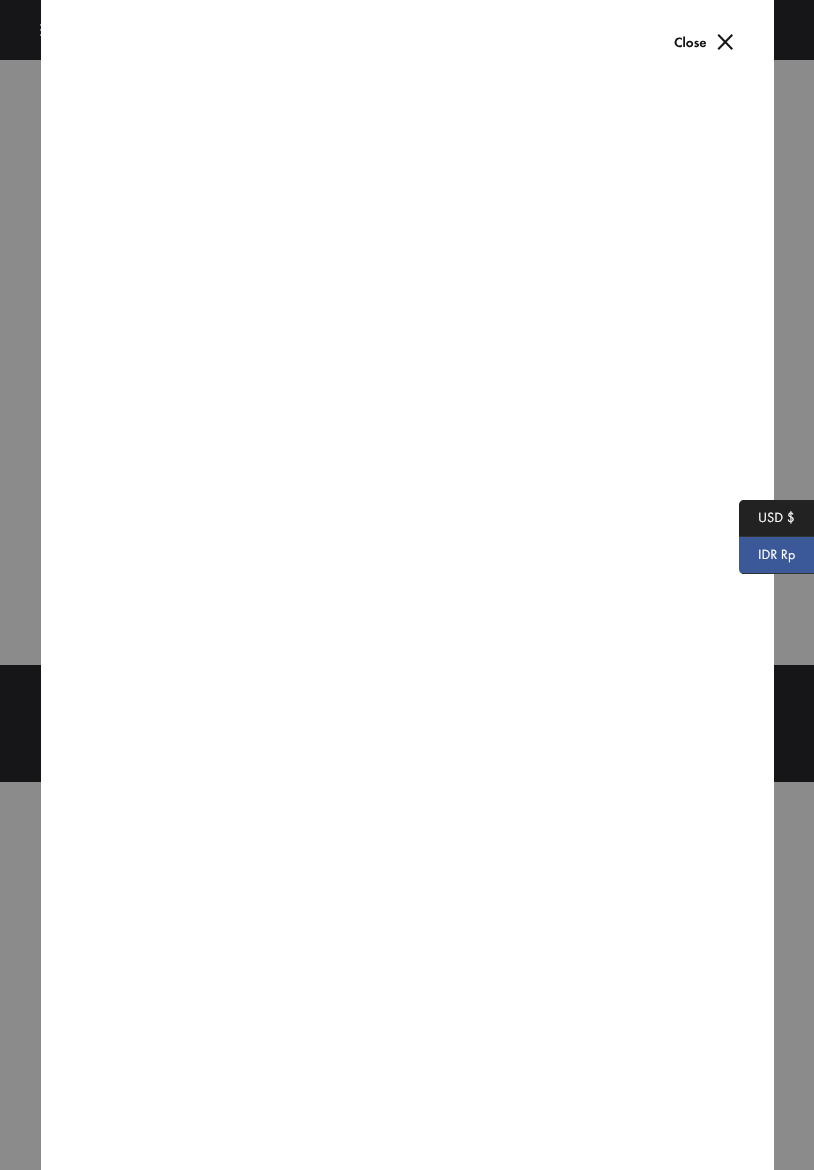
#include "include/core/SkBlurTypes.h"
#include "include/core/SkCanvas.h"
#include "include/core/SkData.h"
#include "include/core/SkFont.h"
#include "include/core/SkFontMgr.h"
#include "include/core/SkImage.h"
#include "include/core/SkMaskFilter.h"
#include "include/core/SkPaint.h"
#include "include/core/SkPathBuilder.h"
#include "include/core/SkTextBlob.h"
#include "include/effects/SkDashPathEffect.h"
#include "include/effects/SkGradientShader.h"
#include "include/utils/SkParsePath.h"

extern sk_sp<SkFontMgr> fontMgr;

static SkFont font(const char* family, int weight, float size, bool italic = false) {
    SkFontStyle style(weight, SkFontStyle::kNormal_Width,
        italic ? SkFontStyle::kItalic_Slant : SkFontStyle::kUpright_Slant);
    SkFont result(fontMgr->matchFamilyStyle(family, style), size);
    result.setSubpixel(true);
    return result;
}

static void drawLabel(SkCanvas* canvas, const char* s, float x, float y, const SkFont& font, SkColor color) {
    SkPaint ink(SkColor4f::FromColor(color));
    ink.setAntiAlias(true);
    canvas->drawString(s, x, y, font, ink);
}

static void fillRect(SkCanvas* canvas, float x, float y, float w, float h, SkColor color) {
    SkPaint ink(SkColor4f::FromColor(color));
    ink.setAntiAlias(true);
    canvas->drawRect(SkRect::MakeXYWH(x, y, w, h), ink);
}

static SkPath parsePath(const char* data, bool evenOdd = false) {
    SkPath result = *SkParsePath::FromSVGString(data);
    if (evenOdd) result.setFillType(SkPathFillType::kEvenOdd);
    return result;
}

void draw(SkCanvas* canvas) {
    SkPaint paint;
    paint.setAntiAlias(true);
    canvas->clear(0xFF8B8B8C);
    fillRect(canvas, 0, 0, 814, 60, 0xFF161619);
    fillRect(canvas, 40, 29, 1, 2, 0xFF8B8B8C);
    fillRect(canvas, 40, 24, 1, 2, 0xFF8B8B8C);
    fillRect(canvas, 40, 34, 1, 2, 0xFF8B8B8C);
    fillRect(canvas, 0, 665, 814, 117, 0xFF161619);
    fillRect(canvas, 41, 0, 733, 1170, 0xFFFFFFFF);
    SkFont font1 = font("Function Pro", 600, 14);
    drawLabel(canvas, "Close", 674, 47, font1, 0xFF161619);
    paint.setColor(0xFF161619);
    canvas->drawPath(parsePath("M719 34L733 48.5L731.5 50L717.5 35.5Z"), paint);
    canvas->drawPath(parsePath("M717.5 48.5L731.5 34L733 35.5L719 50Z"), paint);
    paint.setColor(0xFF222222);
    canvas->drawPath(parsePath("M744 500H814V537H739V505C739 502 741 500 744 500Z"), paint);
    fillRect(canvas, 739, 536, 75, 1, 0xFF333333);
    SkFont font2 = font("Function Pro", 400, 14);
    drawLabel(canvas, "USD $", 758, 522, font2, 0xFFFFFFFF);
    paint.setColor(0xFF3B5998);
    canvas->drawPath(parsePath("M739 537H814V574H744C741 574 739 572 739 569Z"), paint);
    fillRect(canvas, 742, 573, 72, 1, 0xFF333333);
    drawLabel(canvas, "IDR Rp", 758, 559, font2, 0xFFFFFFFF);
}
